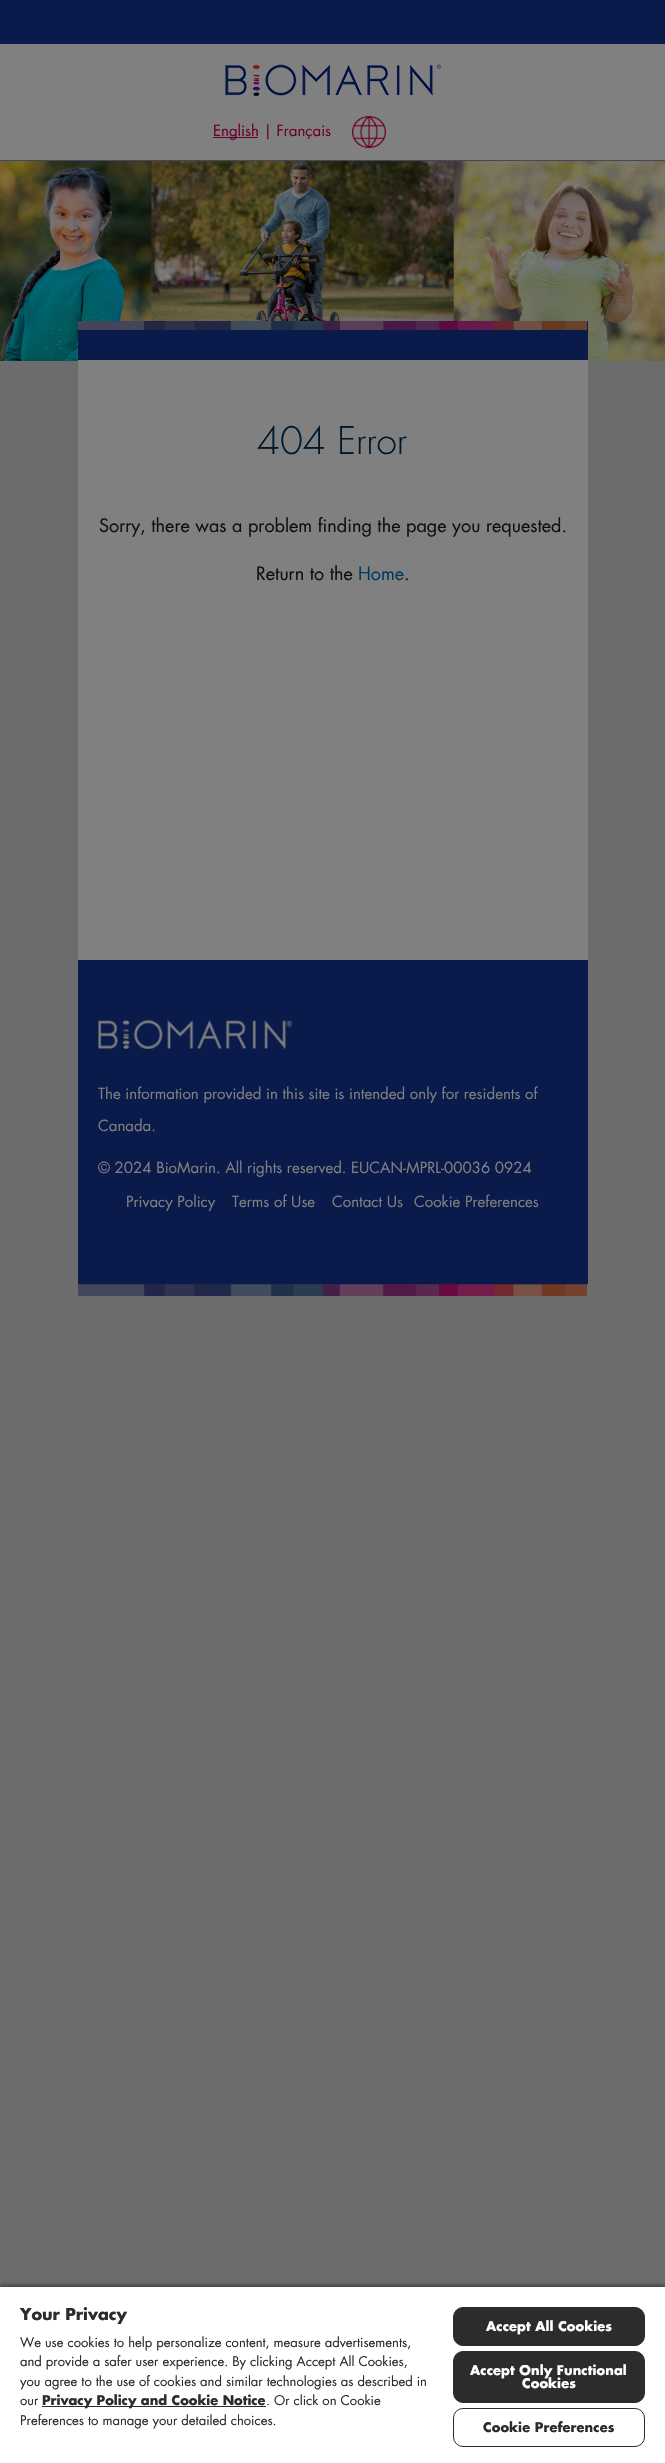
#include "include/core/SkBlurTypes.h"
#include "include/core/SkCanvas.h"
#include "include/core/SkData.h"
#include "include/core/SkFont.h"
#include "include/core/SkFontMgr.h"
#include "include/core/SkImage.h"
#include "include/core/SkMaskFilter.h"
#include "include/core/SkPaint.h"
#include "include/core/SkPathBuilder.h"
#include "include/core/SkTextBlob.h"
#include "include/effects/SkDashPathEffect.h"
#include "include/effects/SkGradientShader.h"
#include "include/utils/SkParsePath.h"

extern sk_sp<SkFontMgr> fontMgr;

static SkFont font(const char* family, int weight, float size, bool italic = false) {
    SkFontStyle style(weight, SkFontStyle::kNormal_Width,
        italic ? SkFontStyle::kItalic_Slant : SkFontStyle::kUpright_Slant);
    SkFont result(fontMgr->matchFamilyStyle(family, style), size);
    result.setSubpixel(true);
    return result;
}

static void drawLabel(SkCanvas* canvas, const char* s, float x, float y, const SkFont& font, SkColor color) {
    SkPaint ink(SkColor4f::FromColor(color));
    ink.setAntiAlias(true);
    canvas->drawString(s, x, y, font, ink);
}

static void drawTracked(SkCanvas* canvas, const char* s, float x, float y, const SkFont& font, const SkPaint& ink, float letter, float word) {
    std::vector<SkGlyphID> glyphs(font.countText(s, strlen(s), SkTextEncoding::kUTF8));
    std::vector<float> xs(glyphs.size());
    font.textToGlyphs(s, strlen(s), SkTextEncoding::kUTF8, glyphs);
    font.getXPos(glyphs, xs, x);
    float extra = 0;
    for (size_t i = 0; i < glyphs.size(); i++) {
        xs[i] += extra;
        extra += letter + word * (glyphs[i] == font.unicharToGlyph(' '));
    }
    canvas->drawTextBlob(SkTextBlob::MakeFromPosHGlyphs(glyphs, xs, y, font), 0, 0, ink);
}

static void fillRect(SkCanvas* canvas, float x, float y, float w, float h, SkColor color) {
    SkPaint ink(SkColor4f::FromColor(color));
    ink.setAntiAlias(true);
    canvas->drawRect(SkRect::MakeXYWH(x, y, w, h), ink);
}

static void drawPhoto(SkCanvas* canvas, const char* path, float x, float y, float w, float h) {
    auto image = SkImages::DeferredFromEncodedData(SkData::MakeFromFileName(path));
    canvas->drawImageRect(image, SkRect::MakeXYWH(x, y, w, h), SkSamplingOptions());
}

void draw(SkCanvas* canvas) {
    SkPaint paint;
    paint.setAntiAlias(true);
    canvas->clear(0xFF6C6C6C);
    fillRect(canvas, 0, 44, 665, 116, 0xFF808080);
    fillRect(canvas, 0, 160, 665, 1, 0xFF3E4862);
    fillRect(canvas, 0, 0, 665, 44, 0xFF0A1B4B);
    drawPhoto(canvas, "assets/img1.png", 225, 64, 216, 32);
    fillRect(canvas, 213, 137, 45, 1, 0xFF6B002C);
    SkFont font1 = font("Futura", 400, 15);
    drawLabel(canvas, "English | Français", 213, 136, font1, 0xFF6B002C);
    drawPhoto(canvas, "assets/img2.png", 352, 116, 34, 32);
    drawPhoto(canvas, "assets/img3.png", 0, 161, 665, 200);
    fillRect(canvas, 78, 360, 510, 600, 0xFF808080);
    fillRect(canvas, 78, 321, 510, 39, 0xFF0A1B4B);
    drawPhoto(canvas, "assets/img4.png", 78, 321, 509, 9);
    SkFont font2 = font("Futura", 300, 37);
    drawLabel(canvas, "404 Error", 257, 454, font2, 0xFF00172B);
    SkFont font3 = font("Futura", 400, 18);
    drawLabel(canvas, "Sorry, there was a problem finding the page you requested.", 99, 532, font3, 0xFF0F0F0F);
    drawLabel(canvas, "Return to the", 256, 580, font3, 0xFF0F0F0F);
    drawLabel(canvas, "Home", 358, 580, font3, 0xFF003B60);
    drawLabel(canvas, ".", 404, 580, font3, 0xFF0F0F0F);
    fillRect(canvas, 78, 960, 510, 324, 0xFF0A1B4B);
    drawPhoto(canvas, "assets/img5.png", 98, 1020, 195, 29);
    drawLabel(canvas, "The information provided in this site is intended only for residents of", 98, 1099, font1, 0xFF808080);
    drawLabel(canvas, "Canada.", 98, 1131, font1, 0xFF808080);
    drawLabel(canvas, "© 2024 BioMarin. All rights reserved. EUCAN-MPRL-00036 0924", 98, 1173, font1, 0xFF808080);
    drawLabel(canvas, "Privacy Policy", 126, 1207, font1, 0xFF808080);
    drawLabel(canvas, "Terms of Use", 232, 1207, font1, 0xFF808080);
    drawLabel(canvas, "Contact Us", 332, 1207, font1, 0xFF808080);
    drawLabel(canvas, "Cookie Preferences", 414, 1207, font1, 0xFF808080);
    drawPhoto(canvas, "assets/img6.png", 78, 1284, 509, 12);
    paint.setColor(0x59000000);
    paint.setMaskFilter(SkMaskFilter::MakeBlur(kNormal_SkBlurStyle, 2));
    canvas->drawRect(SkRect::MakeXYWH(0, 2285, 665, 178), paint);
    paint.setMaskFilter(nullptr);
    paint.setColor(0x33000000);
    paint.setMaskFilter(SkMaskFilter::MakeBlur(kNormal_SkBlurStyle, 2));
    canvas->drawRect(SkRect::MakeXYWH(0, 2287, 665, 176), paint);
    paint.setMaskFilter(nullptr);
    fillRect(canvas, 0, 2287, 665, 176, 0xFFFFFFFF);
    SkFont font4 = font("Futura", 700, 16);
    drawLabel(canvas, "Your Privacy", 20, 2320, font4, 0xFF2C2C2C);
    SkFont font5 = font("Futura", 400, 13);
    drawLabel(canvas, "We use cookies to help personalize content, measure advertisements,", 20, 2347, font5, 0xFF2C2C2C);
    drawLabel(canvas, "and provide a safer user experience. By clicking Accept All Cookies,", 20, 2366, font5, 0xFF2C2C2C);
    drawLabel(canvas, "you agree to the use of cookies and similar technologies as described in", 20, 2386, font5, 0xFF2C2C2C);
    drawLabel(canvas, "our", 20, 2405, font5, 0xFF2C2C2C);
    fillRect(canvas, 42, 2406, 224, 1, 0xFF2C2C2C);
    SkFont font6 = font("Futura", 700, 13);
    drawLabel(canvas, "Privacy Policy and Cookie Notice", 42, 2405, font6, 0xFF2C2C2C);
    drawLabel(canvas, ". Or click on Cookie", 266, 2405, font5, 0xFF2C2C2C);
    drawLabel(canvas, "Preferences to manage your detailed choices.", 20, 2425, font5, 0xFF2C2C2C);
    paint.setColor(0xFF2C2C2C);
    canvas->drawRoundRect(SkRect::MakeXYWH(453.5f, 2307.5f, 191, 38), 9.5f, 9.5f, paint);
    paint.setStroke(true);
    paint.setStrokeWidth(1);
    canvas->drawRoundRect(SkRect::MakeXYWH(453.5f, 2307.5f, 191, 38), 9.5f, 9.5f, paint);
    paint.setStroke(false);
    paint.setColor(0xFFFFFFFF);
    drawTracked(canvas, "Accept All Cookies", 486, 2331, font6, paint, 0.1f, 0);
    paint.setColor(0xFF2C2C2C);
    canvas->drawRoundRect(SkRect::MakeXYWH(453.5f, 2351.5f, 191, 51), 9.5f, 9.5f, paint);
    paint.setStroke(true);
    canvas->drawRoundRect(SkRect::MakeXYWH(453.5f, 2351.5f, 191, 51), 9.5f, 9.5f, paint);
    paint.setStroke(false);
    paint.setColor(0xFFFFFFFF);
    drawTracked(canvas, "Accept Only Functional", 470, 2375, font6, paint, 0.1f, 0);
    drawTracked(canvas, "Cookies", 522, 2388, font6, paint, 0.1f, 0);
    paint.setStroke(true);
    paint.setColor(0xFF2C2C2C);
    canvas->drawRoundRect(SkRect::MakeXYWH(453.5f, 2408.5f, 191, 38), 9.5f, 9.5f, paint);
    paint.setStroke(false);
    drawTracked(canvas, "Cookie Preferences", 483, 2432, font6, paint, 0.1f, 0);
}
